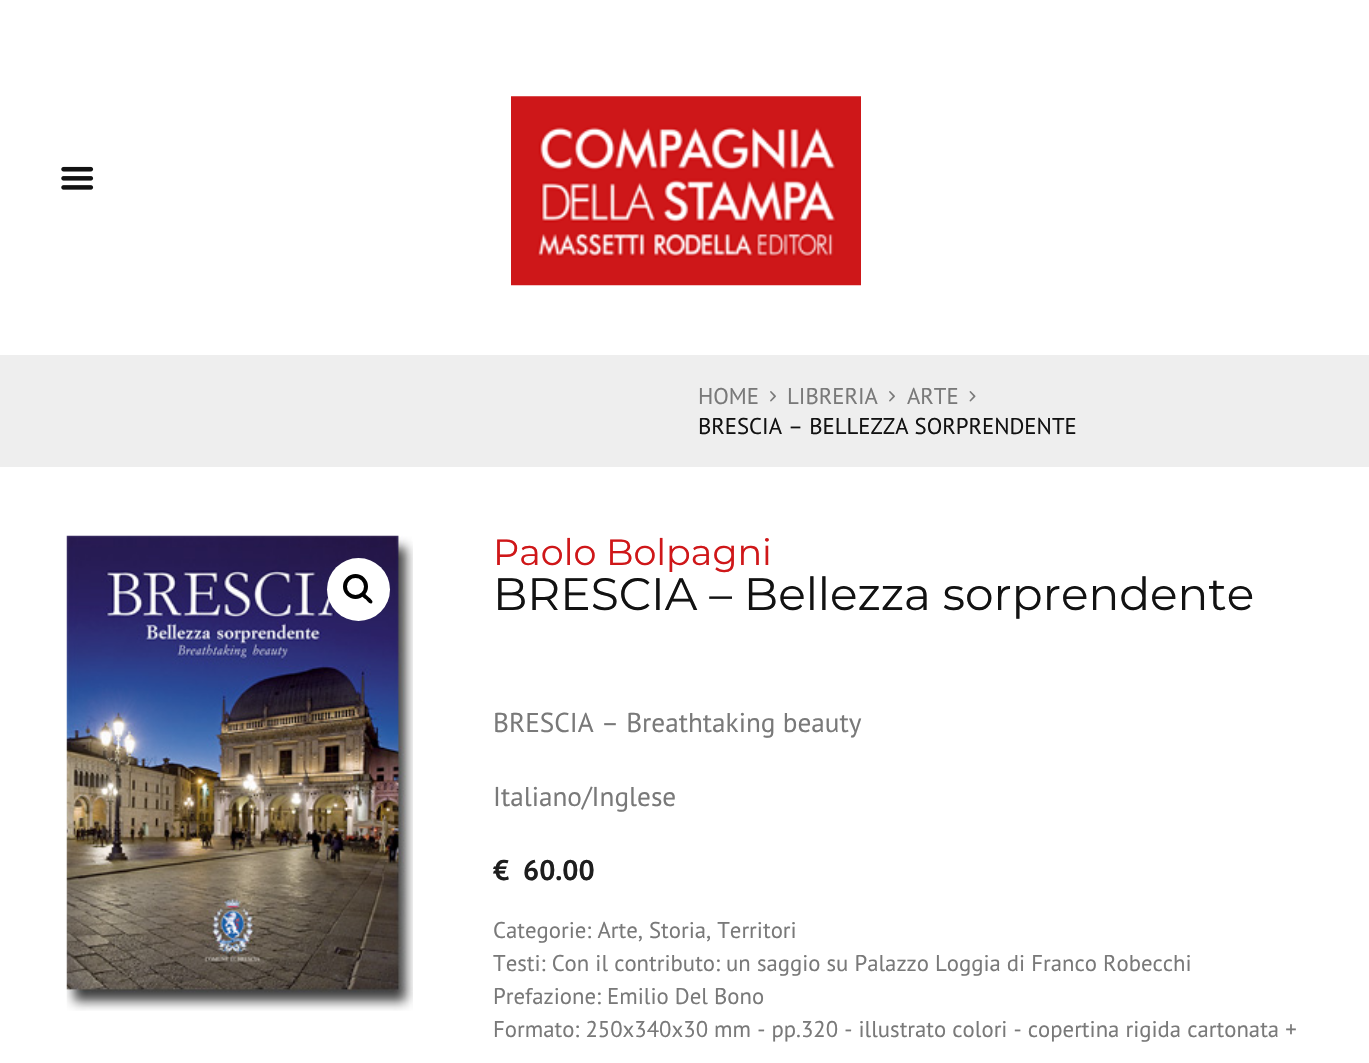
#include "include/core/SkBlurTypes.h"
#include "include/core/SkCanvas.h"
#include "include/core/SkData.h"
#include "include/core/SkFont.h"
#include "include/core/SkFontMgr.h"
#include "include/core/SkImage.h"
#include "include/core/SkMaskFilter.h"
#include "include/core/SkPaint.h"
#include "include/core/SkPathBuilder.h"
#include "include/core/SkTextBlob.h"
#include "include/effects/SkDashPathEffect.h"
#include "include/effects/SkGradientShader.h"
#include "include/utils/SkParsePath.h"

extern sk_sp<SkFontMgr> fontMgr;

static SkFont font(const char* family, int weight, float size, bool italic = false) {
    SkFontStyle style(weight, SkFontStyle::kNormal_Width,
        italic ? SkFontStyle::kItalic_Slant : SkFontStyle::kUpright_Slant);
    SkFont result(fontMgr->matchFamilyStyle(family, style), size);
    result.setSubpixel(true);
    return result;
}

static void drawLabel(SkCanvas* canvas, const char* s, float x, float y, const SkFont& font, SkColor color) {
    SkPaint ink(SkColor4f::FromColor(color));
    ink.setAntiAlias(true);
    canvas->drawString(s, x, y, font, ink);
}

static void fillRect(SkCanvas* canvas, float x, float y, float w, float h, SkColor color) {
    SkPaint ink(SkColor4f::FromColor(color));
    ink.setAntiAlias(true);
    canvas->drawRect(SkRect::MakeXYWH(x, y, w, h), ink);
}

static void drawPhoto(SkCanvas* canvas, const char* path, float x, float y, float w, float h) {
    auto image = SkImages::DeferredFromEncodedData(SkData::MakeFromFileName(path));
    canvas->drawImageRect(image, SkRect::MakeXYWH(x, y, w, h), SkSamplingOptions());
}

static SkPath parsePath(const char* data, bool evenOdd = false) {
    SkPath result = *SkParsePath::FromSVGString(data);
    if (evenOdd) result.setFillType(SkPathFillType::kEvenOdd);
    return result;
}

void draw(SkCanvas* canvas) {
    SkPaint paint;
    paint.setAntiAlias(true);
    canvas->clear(0xFFFFFFFF);
    drawPhoto(canvas, "assets/img1.png", 61, 166, 33, 24);
    drawPhoto(canvas, "assets/img2.png", 511, 96, 350, 190);
    fillRect(canvas, 0, 355, 1369, 112, 0xFFEEEEEE);
    SkFont font1 = font("PT Sans", 400, 22.75f);
    drawLabel(canvas, "HOME", 698, 404, font1, 0xFF797979);
    drawPhoto(canvas, "assets/img3.png", 770, 391, 6, 11);
    drawLabel(canvas, "LIBRERIA", 787, 404, font1, 0xFF797979);
    drawPhoto(canvas, "assets/img3.png", 889, 391, 6, 11);
    drawLabel(canvas, "ARTE", 907, 404, font1, 0xFF797979);
    drawPhoto(canvas, "assets/img4.png", 969, 391, 7, 11);
    drawLabel(canvas, "BRESCIA – BELLEZZA SORPRENDENTE", 698, 434, font1, 0xFF121212);
    drawPhoto(canvas, "assets/img5.png", 66, 535, 347, 476);
    paint.setColor(0xFFFFFFFF);
    canvas->drawCircle(358.5f, 589.5f, 31.5f, paint);
    paint.setStroke(true);
    paint.setStrokeWidth(4);
    paint.setColor(0xFF000000);
    canvas->drawCircle(355.5f, 586.5f, 10.5f, paint);
    paint.setStroke(false);
    canvas->drawPath(parsePath("M362 593.5C364 591.5 367 596 368.5 597C369.5 598 374 601 372 603C370 605 367 600.5 366 599.5C364.5 598.5 360 595.5 362 593.5Z"), paint);
    SkFont font2 = font("Montserrat", 400, 36.5f);
    drawLabel(canvas, "Paolo Bolpagni", 493, 565, font2, 0xFFCF1719);
    SkFont font3 = font("Montserrat", 400, 45.5f);
    drawLabel(canvas, "BRESCIA – Bellezza sorprendente", 493, 610, font3, 0xFF121212);
    SkFont font4 = font("PT Sans", 400, 27.25f);
    drawLabel(canvas, "BRESCIA – Breathtaking beauty", 493, 732, font4, 0xFF797979);
    drawLabel(canvas, "Italiano/Inglese", 493, 806, font4, 0xFF797979);
    SkFont font5 = font("PT Sans", 700, 28.5f);
    drawLabel(canvas, "€", 493, 880, font5, 0xFF1E1E1E);
    drawLabel(canvas, "60.00", 523, 880, font5, 0xFF1E1E1E);
    drawLabel(canvas, "Categorie: Arte, Storia, Territori", 493, 938, font1, 0xFF797979);
    drawLabel(canvas, "Testi: Con il contributo: un saggio su Palazzo Loggia di Franco Robecchi", 493, 971, font1, 0xFF797979);
    drawLabel(canvas, "Prefazione: Emilio Del Bono", 493, 1004, font1, 0xFF797979);
    drawLabel(canvas, "Formato: 250x340x30 mm - pp.320 - illustrato colori - copertina rigida cartonata +", 493, 1037, font1, 0xFF797979);
}
